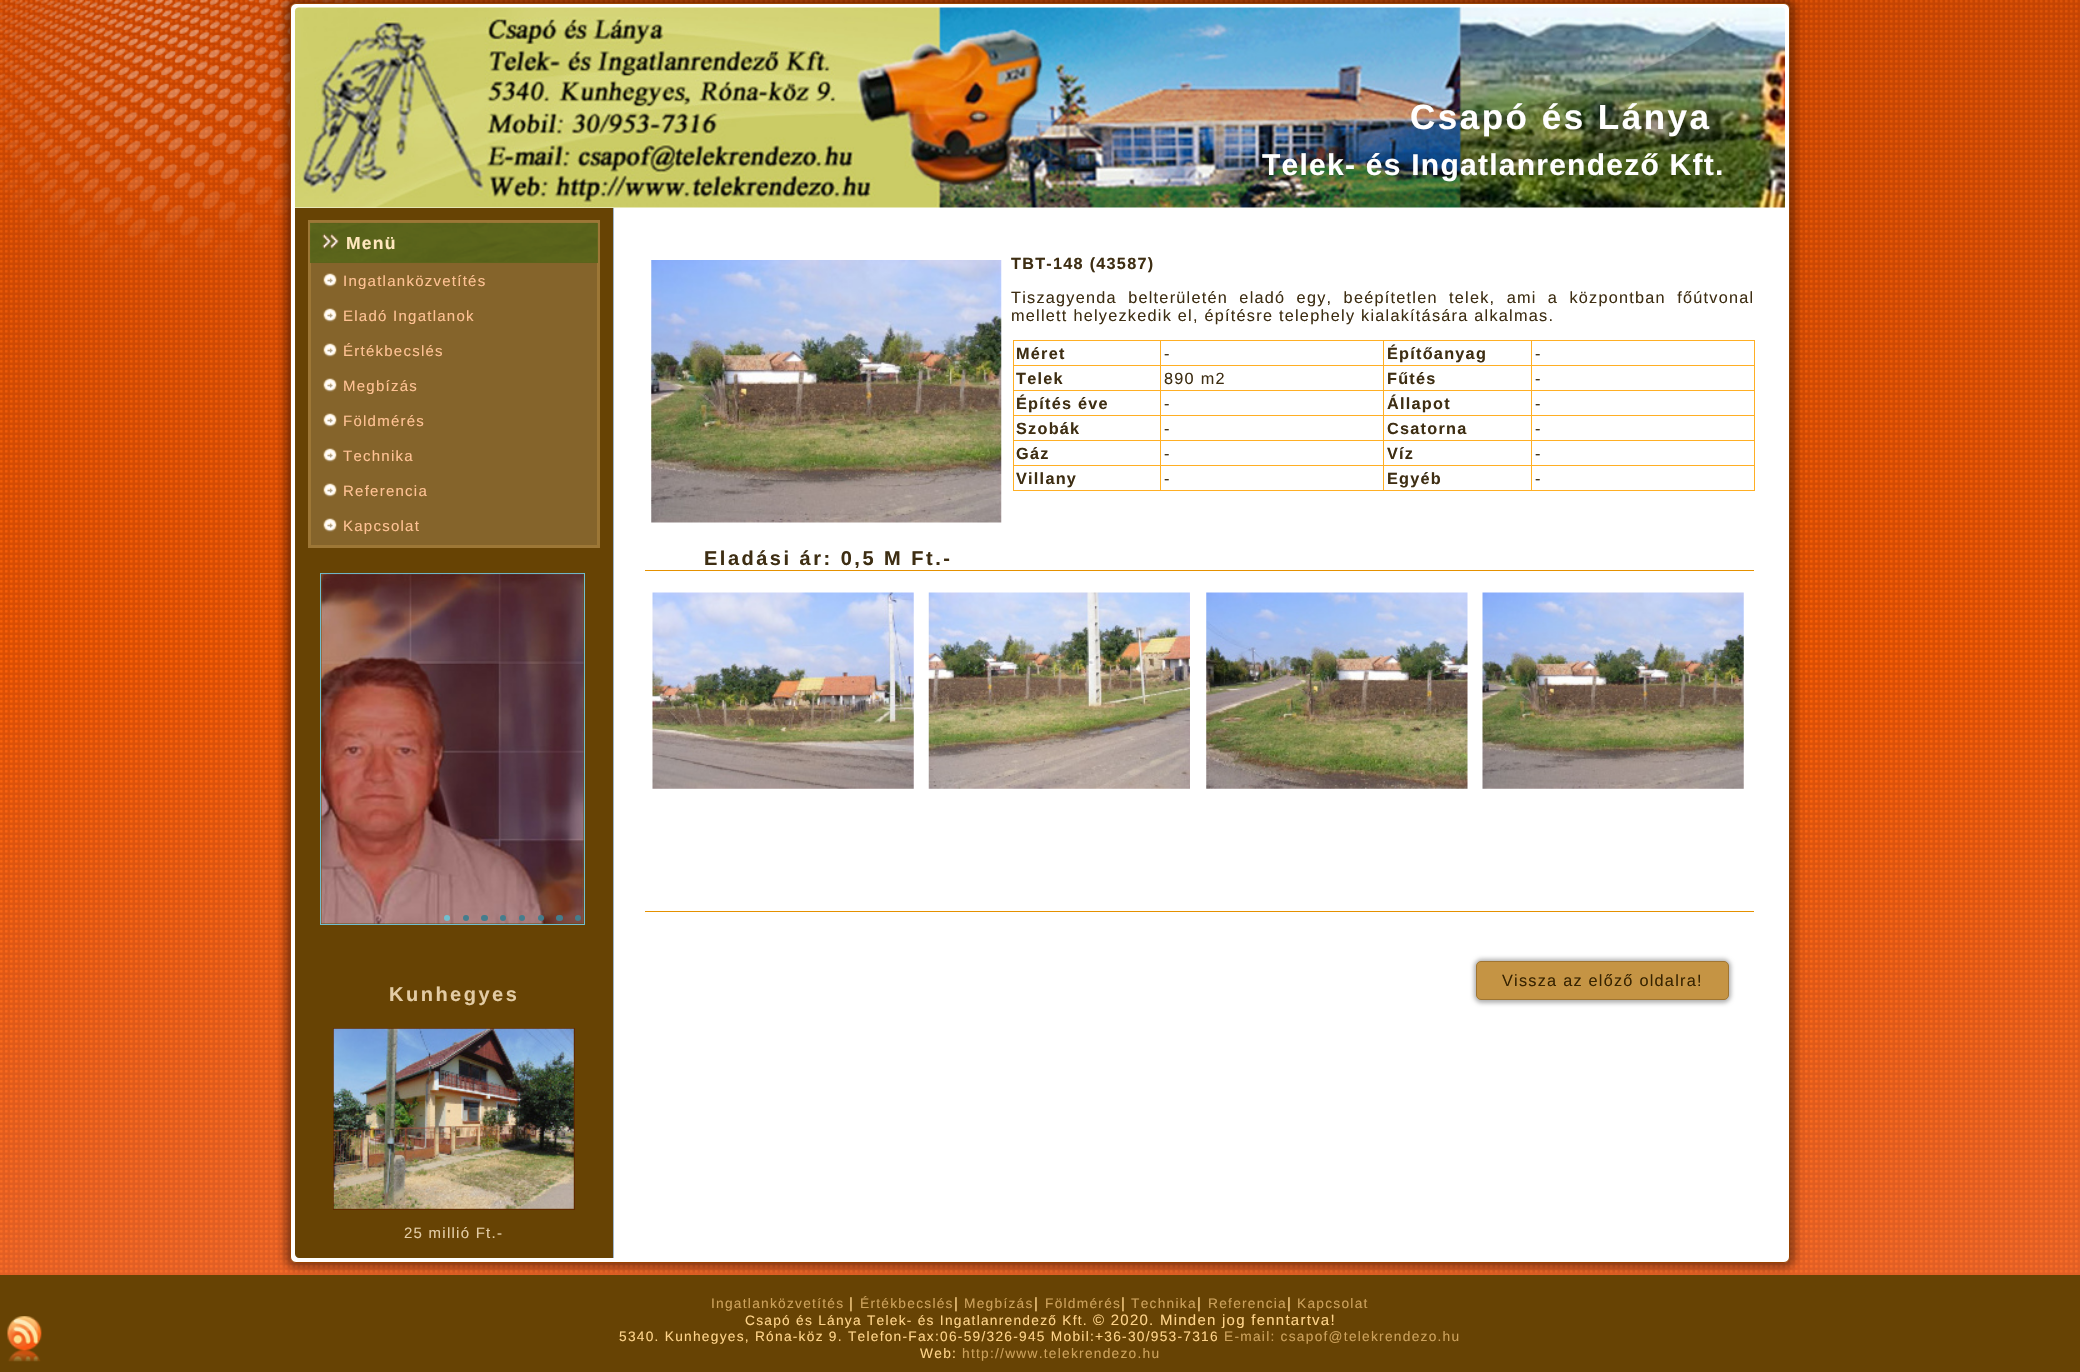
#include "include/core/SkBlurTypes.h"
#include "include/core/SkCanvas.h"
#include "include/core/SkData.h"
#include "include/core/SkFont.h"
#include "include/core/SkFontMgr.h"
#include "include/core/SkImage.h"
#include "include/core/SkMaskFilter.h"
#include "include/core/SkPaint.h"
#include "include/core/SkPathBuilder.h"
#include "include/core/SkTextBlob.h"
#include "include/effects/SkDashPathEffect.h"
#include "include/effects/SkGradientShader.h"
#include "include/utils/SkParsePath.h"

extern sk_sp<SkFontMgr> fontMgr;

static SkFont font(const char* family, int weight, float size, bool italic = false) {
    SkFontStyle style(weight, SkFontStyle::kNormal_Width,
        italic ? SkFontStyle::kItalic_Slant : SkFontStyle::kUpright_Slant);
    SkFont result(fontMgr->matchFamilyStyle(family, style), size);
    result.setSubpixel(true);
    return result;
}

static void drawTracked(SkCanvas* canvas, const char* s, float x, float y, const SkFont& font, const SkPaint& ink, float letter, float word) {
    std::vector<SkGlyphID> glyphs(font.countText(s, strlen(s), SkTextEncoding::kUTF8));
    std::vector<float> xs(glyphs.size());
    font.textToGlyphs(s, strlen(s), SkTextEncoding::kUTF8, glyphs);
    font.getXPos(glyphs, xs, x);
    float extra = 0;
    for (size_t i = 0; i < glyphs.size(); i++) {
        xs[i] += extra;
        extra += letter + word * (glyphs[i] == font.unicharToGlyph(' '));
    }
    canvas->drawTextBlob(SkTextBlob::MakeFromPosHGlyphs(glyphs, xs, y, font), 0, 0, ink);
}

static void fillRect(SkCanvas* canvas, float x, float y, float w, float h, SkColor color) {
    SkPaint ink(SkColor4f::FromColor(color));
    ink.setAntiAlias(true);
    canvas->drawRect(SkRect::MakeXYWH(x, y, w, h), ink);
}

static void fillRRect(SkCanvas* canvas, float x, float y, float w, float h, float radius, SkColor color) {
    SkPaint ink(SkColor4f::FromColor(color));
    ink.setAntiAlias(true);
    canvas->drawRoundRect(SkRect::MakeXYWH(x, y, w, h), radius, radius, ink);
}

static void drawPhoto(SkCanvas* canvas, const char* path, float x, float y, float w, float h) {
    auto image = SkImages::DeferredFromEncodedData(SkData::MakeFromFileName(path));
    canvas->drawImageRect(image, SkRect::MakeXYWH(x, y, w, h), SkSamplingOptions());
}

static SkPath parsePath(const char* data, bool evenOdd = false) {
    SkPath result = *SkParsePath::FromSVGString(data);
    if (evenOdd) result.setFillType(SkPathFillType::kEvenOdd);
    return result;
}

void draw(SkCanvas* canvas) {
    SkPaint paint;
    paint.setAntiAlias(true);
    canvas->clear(0xFFFFFFFF);
    drawPhoto(canvas, "assets/img1.png", 0, 0, 2080, 1275);
    paint.setColor(0x66000000);
    paint.setMaskFilter(SkMaskFilter::MakeBlur(kNormal_SkBlurStyle, 4.5f));
    canvas->drawRoundRect(SkRect::MakeXYWH(285, -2, 1510, 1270), 11, 11, paint);
    paint.setMaskFilter(nullptr);
    paint.setColor(0xFFFFFFFF);
    canvas->drawRoundRect(SkRect::MakeXYWH(290.5f, 3.5f, 1499, 1259), 5.5f, 5.5f, paint);
    paint.setStroke(true);
    paint.setStrokeWidth(1);
    paint.setColor(0xFF994200);
    canvas->drawRoundRect(SkRect::MakeXYWH(290.5f, 3.5f, 1499, 1259), 5.5f, 5.5f, paint);
    drawPhoto(canvas, "assets/img2.png", 294, 7, 1491, 201);
    SkFont font1 = font("Liberation Sans", 700, 35);
    paint.setStroke(false);
    paint.setColor(0xFFFFFFFF);
    drawTracked(canvas, "Csapó és Lánya", 1410, 129, font1, paint, 2.5f, 0);
    SkFont font2 = font("Liberation Sans", 700, 30);
    drawTracked(canvas, "Telek- és Ingatlanrendező Kft.", 1262, 175, font2, paint, 1.25f, 0);
    paint.setColor(0xFF674304);
    canvas->drawPath(parsePath("M295 208H614V1258H299C297 1258 295 1256 295 1254Z"), paint);
    fillRect(canvas, 613, 208, 1, 1050, 0xFF9FB4CB);
    paint.setColor(0xFF85642B);
    canvas->drawRect(SkRect::MakeXYWH(309.5f, 221.5f, 289, 325), paint);
    paint.setStroke(true);
    paint.setStrokeWidth(3);
    paint.setColor(0xFF9D7736);
    canvas->drawRect(SkRect::MakeXYWH(309.5f, 221.5f, 289, 325), paint);
    fillRect(canvas, 310, 223, 288, 40, 0xCC506317);
    drawPhoto(canvas, "assets/img3.png", 310, 222, 287, 40);
    drawPhoto(canvas, "assets/img4.png", 322, 233, 17, 16);
    SkFont font3 = font("Liberation Sans", 700, 17.5f);
    paint.setStroke(false);
    paint.setColor(0xFFFFE7BD);
    drawTracked(canvas, "Menü", 346, 249, font3, paint, 1.25f, 0);
    drawPhoto(canvas, "assets/img5.png", 323, 273, 14, 14);
    SkFont font4 = font("Liberation Sans", 400, 15);
    paint.setColor(0xFFFFC294);
    drawTracked(canvas, "Ingatlanközvetítés", 343, 286, font4, paint, 1.25f, 0);
    drawPhoto(canvas, "assets/img5.png", 323, 308, 14, 14);
    drawTracked(canvas, "Eladó Ingatlanok", 343, 321, font4, paint, 1.25f, 0);
    drawPhoto(canvas, "assets/img5.png", 323, 343, 14, 14);
    drawTracked(canvas, "Értékbecslés", 343, 356, font4, paint, 1.25f, 0);
    drawPhoto(canvas, "assets/img5.png", 323, 378, 14, 14);
    drawTracked(canvas, "Megbízás", 343, 391, font4, paint, 1.25f, 0);
    drawPhoto(canvas, "assets/img5.png", 323, 413, 14, 14);
    drawTracked(canvas, "Földmérés", 343, 426, font4, paint, 1.25f, 0);
    drawPhoto(canvas, "assets/img5.png", 323, 448, 14, 14);
    drawTracked(canvas, "Technika", 343, 461, font4, paint, 1.25f, 0);
    drawPhoto(canvas, "assets/img5.png", 323, 483, 14, 14);
    drawTracked(canvas, "Referencia", 343, 496, font4, paint, 1.25f, 0);
    drawPhoto(canvas, "assets/img5.png", 323, 518, 14, 14);
    drawTracked(canvas, "Kapcsolat", 343, 531, font4, paint, 1.25f, 0);
    paint.setStroke(true);
    paint.setStrokeWidth(1);
    paint.setColor(0xFF71BFD0);
    canvas->drawRect(SkRect::MakeXYWH(320.5f, 573.5f, 264, 351), paint);
    drawPhoto(canvas, "assets/img6.png", 321, 573, 263, 351);
    paint.setStroke(false);
    canvas->drawCircle(447, 918, 3, paint);
    paint.setColor(0xFF447D8D);
    canvas->drawCircle(466, 918, 3, paint);
    fillRRect(canvas, 481, 915, 7, 6, 3, 0xFF447D8D);
    canvas->drawCircle(503, 918, 3, paint);
    canvas->drawCircle(522, 918, 3, paint);
    canvas->drawCircle(541, 918, 3, paint);
    fillRRect(canvas, 556, 915, 7, 6, 3, 0xFF447D8D);
    canvas->drawCircle(578, 918, 3, paint);
    SkFont font5 = font("Liberation Sans", 700, 20);
    paint.setColor(0xFFE3CCA5);
    drawTracked(canvas, "Kunhegyes", 389, 1001, font5, paint, 2.5f, 0);
    paint.setStroke(true);
    paint.setColor(0xFF612A00);
    canvas->drawRect(SkRect::MakeXYWH(333.5f, 1028.5f, 241, 181), paint);
    drawPhoto(canvas, "assets/img7.png", 333, 1028, 241, 181);
    paint.setStroke(false);
    paint.setColor(0xFFE3CCA5);
    drawTracked(canvas, "25 millió Ft.-", 404, 1238, font4, paint, 1.25f, 0);
    SkFont font6 = font("Liberation Sans", 700, 16.25f);
    paint.setColor(0xFF3E2E13);
    drawTracked(canvas, "TBT-148 (43587)", 1011, 269, font6, paint, 1.25f, 0);
    SkFont font7 = font("Liberation Sans", 400, 16.25f);
    drawTracked(canvas, "Tiszagyenda belterületén eladó egy, beépítetlen telek, ami a központban főútvonal", 1011, 303, font7, paint, 1.25f, 5.5f);
    drawTracked(canvas, "mellett helyezkedik el, építésre telephely kialakítására alkalmas.", 1011, 321, font7, paint, 1.25f, 0);
    fillRect(canvas, 1531, 340, 224, 1, 0xFFFFAF24);
    fillRect(canvas, 1531, 365, 224, 1, 0xFFFFAF24);
    fillRect(canvas, 1531, 390, 224, 1, 0xFFFFAF24);
    fillRect(canvas, 1531, 415, 224, 1, 0xFFFFAF24);
    fillRect(canvas, 1531, 440, 224, 1, 0xFFFFAF24);
    fillRect(canvas, 1531, 465, 224, 1, 0xFFFFAF24);
    fillRect(canvas, 1754, 465, 1, 26, 0xFFFFAF24);
    fillRect(canvas, 1531, 490, 224, 1, 0xFFFFAF24);
    fillRect(canvas, 1531, 465, 1, 26, 0xFFFFAF24);
    fillRect(canvas, 1383, 465, 150, 1, 0xFFFFAF24);
    fillRect(canvas, 1531, 440, 1, 26, 0xFFFFAF24);
    fillRect(canvas, 1383, 440, 150, 1, 0xFFFFAF24);
    fillRect(canvas, 1531, 415, 1, 26, 0xFFFFAF24);
    fillRect(canvas, 1383, 415, 150, 1, 0xFFFFAF24);
    fillRect(canvas, 1531, 390, 1, 26, 0xFFFFAF24);
    fillRect(canvas, 1383, 390, 150, 1, 0xFFFFAF24);
    fillRect(canvas, 1531, 365, 1, 26, 0xFFFFAF24);
    fillRect(canvas, 1383, 365, 150, 1, 0xFFFFAF24);
    fillRect(canvas, 1531, 340, 1, 26, 0xFFFFAF24);
    fillRect(canvas, 1383, 340, 150, 1, 0xFFFFAF24);
    fillRect(canvas, 1383, 490, 150, 1, 0xFFFFAF24);
    fillRect(canvas, 1383, 465, 1, 26, 0xFFFFAF24);
    fillRect(canvas, 1160, 465, 224, 1, 0xFFFFAF24);
    fillRect(canvas, 1383, 440, 1, 26, 0xFFFFAF24);
    fillRect(canvas, 1160, 440, 224, 1, 0xFFFFAF24);
    fillRect(canvas, 1383, 415, 1, 26, 0xFFFFAF24);
    fillRect(canvas, 1160, 415, 224, 1, 0xFFFFAF24);
    fillRect(canvas, 1383, 390, 1, 26, 0xFFFFAF24);
    fillRect(canvas, 1160, 390, 224, 1, 0xFFFFAF24);
    fillRect(canvas, 1383, 365, 1, 26, 0xFFFFAF24);
    fillRect(canvas, 1160, 365, 224, 1, 0xFFFFAF24);
    fillRect(canvas, 1383, 340, 1, 26, 0xFFFFAF24);
    fillRect(canvas, 1160, 340, 224, 1, 0xFFFFAF24);
    fillRect(canvas, 1160, 490, 224, 1, 0xFFFFAF24);
    fillRect(canvas, 1160, 465, 1, 26, 0xFFFFAF24);
    fillRect(canvas, 1013, 465, 148, 1, 0xFFFFAF24);
    fillRect(canvas, 1160, 440, 1, 26, 0xFFFFAF24);
    fillRect(canvas, 1013, 440, 148, 1, 0xFFFFAF24);
    fillRect(canvas, 1160, 415, 1, 26, 0xFFFFAF24);
    fillRect(canvas, 1013, 415, 148, 1, 0xFFFFAF24);
    fillRect(canvas, 1160, 390, 1, 26, 0xFFFFAF24);
    fillRect(canvas, 1013, 390, 148, 1, 0xFFFFAF24);
    fillRect(canvas, 1160, 365, 1, 26, 0xFFFFAF24);
    fillRect(canvas, 1013, 365, 148, 1, 0xFFFFAF24);
    fillRect(canvas, 1160, 340, 1, 26, 0xFFFFAF24);
    fillRect(canvas, 1013, 340, 148, 1, 0xFFFFAF24);
    fillRect(canvas, 1013, 490, 148, 1, 0xFFFFAF24);
    fillRect(canvas, 1013, 465, 1, 26, 0xFFFFAF24);
    fillRect(canvas, 1013, 440, 1, 26, 0xFFFFAF24);
    fillRect(canvas, 1013, 415, 1, 26, 0xFFFFAF24);
    fillRect(canvas, 1013, 390, 1, 26, 0xFFFFAF24);
    fillRect(canvas, 1013, 365, 1, 26, 0xFFFFAF24);
    fillRect(canvas, 1013, 340, 1, 26, 0xFFFFAF24);
    drawTracked(canvas, "Méret", 1016, 359, font6, paint, 1.25f, 0);
    drawTracked(canvas, "-", 1164, 359, font7, paint, 1.25f, 0);
    drawTracked(canvas, "Építőanyag", 1387, 359, font6, paint, 1.25f, 0);
    fillRect(canvas, 1754, 440, 1, 26, 0xFFFFAF24);
    fillRect(canvas, 1754, 415, 1, 26, 0xFFFFAF24);
    fillRect(canvas, 1754, 390, 1, 26, 0xFFFFAF24);
    fillRect(canvas, 1754, 365, 1, 26, 0xFFFFAF24);
    fillRect(canvas, 1754, 340, 1, 26, 0xFFFFAF24);
    drawTracked(canvas, "-", 1535, 359, font7, paint, 1.25f, 0);
    drawTracked(canvas, "Telek", 1016, 384, font6, paint, 1.25f, 0);
    drawTracked(canvas, "890 m2", 1164, 384, font7, paint, 1.25f, 0);
    drawTracked(canvas, "Fűtés", 1387, 384, font6, paint, 1.25f, 0);
    drawTracked(canvas, "-", 1535, 384, font7, paint, 1.25f, 0);
    drawTracked(canvas, "Építés éve", 1016, 409, font6, paint, 1.25f, 0);
    drawTracked(canvas, "-", 1164, 409, font7, paint, 1.25f, 0);
    drawTracked(canvas, "Állapot", 1387, 409, font6, paint, 1.25f, 0);
    drawTracked(canvas, "-", 1535, 409, font7, paint, 1.25f, 0);
    drawTracked(canvas, "Szobák", 1016, 434, font6, paint, 1.25f, 0);
    drawTracked(canvas, "-", 1164, 434, font7, paint, 1.25f, 0);
    drawTracked(canvas, "Csatorna", 1387, 434, font6, paint, 1.25f, 0);
    drawTracked(canvas, "-", 1535, 434, font7, paint, 1.25f, 0);
    drawTracked(canvas, "Gáz", 1016, 459, font6, paint, 1.25f, 0);
    drawTracked(canvas, "-", 1164, 459, font7, paint, 1.25f, 0);
    drawTracked(canvas, "Víz", 1387, 459, font6, paint, 1.25f, 0);
    drawTracked(canvas, "-", 1535, 459, font7, paint, 1.25f, 0);
    drawTracked(canvas, "Villany", 1016, 484, font6, paint, 1.25f, 0);
    drawTracked(canvas, "-", 1164, 484, font7, paint, 1.25f, 0);
    drawTracked(canvas, "Egyéb", 1387, 484, font6, paint, 1.25f, 0);
    drawTracked(canvas, "-", 1535, 484, font7, paint, 1.25f, 0);
    drawPhoto(canvas, "assets/img8.png", 651, 260, 351, 263);
    drawTracked(canvas, "Eladási ár: 0,5 M Ft.-", 704, 565, font5, paint, 2.5f, 0);
    fillRect(canvas, 645, 570, 1109, 1, 0xFFE59100);
    drawPhoto(canvas, "assets/img9.png", 652, 592, 262, 197);
    drawPhoto(canvas, "assets/img10.png", 928, 592, 262, 197);
    drawPhoto(canvas, "assets/img11.png", 1206, 592, 262, 197);
    drawPhoto(canvas, "assets/img12.png", 1482, 592, 262, 197);
    fillRect(canvas, 645, 911, 1109, 1, 0xFFE59100);
    paint.setColor(0x4D000000);
    paint.setMaskFilter(SkMaskFilter::MakeBlur(kNormal_SkBlurStyle, 2));
    canvas->drawRoundRect(SkRect::MakeXYWH(1474, 959, 257, 44), 8, 8, paint);
    paint.setMaskFilter(nullptr);
    paint.setColor(0xFFC59444);
    canvas->drawRoundRect(SkRect::MakeXYWH(1476.5f, 961.5f, 252, 38), 4.5f, 4.5f, paint);
    paint.setStroke(true);
    paint.setColor(0xFFA07531);
    canvas->drawRoundRect(SkRect::MakeXYWH(1476.5f, 961.5f, 252, 38), 4.5f, 4.5f, paint);
    paint.setStroke(false);
    paint.setColor(0xFF382400);
    drawTracked(canvas, "Vissza az előző oldalra!", 1502, 986, font7, paint, 1.25f, 0);
    fillRect(canvas, 0, 1275, 2080, 97, 0xFF674304);
    drawPhoto(canvas, "assets/img13.png", 7, 1316, 35, 46);
    SkFont font8 = font("Liberation Sans", 400, 13.75f);
    paint.setColor(0xFFCCA15B);
    drawTracked(canvas, "Ingatlanközvetítés", 711, 1308, font8, paint, 1.25f, 0);
    paint.setColor(0xFFFFD48A);
    drawTracked(canvas, "|", 849, 1308, font4, paint, 1.25f, 0);
    paint.setColor(0xFFCCA15B);
    drawTracked(canvas, "Értékbecslés", 860, 1308, font8, paint, 1.25f, 0);
    paint.setColor(0xFFFFD48A);
    drawTracked(canvas, "|", 954, 1308, font4, paint, 1.25f, 0);
    paint.setColor(0xFFCCA15B);
    drawTracked(canvas, "Megbízás", 964, 1308, font8, paint, 1.25f, 0);
    paint.setColor(0xFFFFD48A);
    drawTracked(canvas, "|", 1034, 1308, font4, paint, 1.25f, 0);
    paint.setColor(0xFFCCA15B);
    drawTracked(canvas, "Földmérés", 1045, 1308, font8, paint, 1.25f, 0);
    paint.setColor(0xFFFFD48A);
    drawTracked(canvas, "|", 1121, 1308, font4, paint, 1.25f, 0);
    paint.setColor(0xFFCCA15B);
    drawTracked(canvas, "Technika", 1131, 1308, font8, paint, 1.25f, 0);
    paint.setColor(0xFFFFD48A);
    drawTracked(canvas, "|", 1197, 1308, font4, paint, 1.25f, 0);
    paint.setColor(0xFFCCA15B);
    drawTracked(canvas, "Referencia", 1208, 1308, font8, paint, 1.25f, 0);
    paint.setColor(0xFFFFD48A);
    drawTracked(canvas, "|", 1287, 1308, font4, paint, 1.25f, 0);
    paint.setColor(0xFFCCA15B);
    drawTracked(canvas, "Kapcsolat", 1297, 1308, font8, paint, 1.25f, 0);
    paint.setColor(0xFFFFD48A);
    drawTracked(canvas, "Csapó és Lánya Telek- és Ingatlanrendező Kft.", 745, 1325, font8, paint, 1.25f, 0);
    drawTracked(canvas, "© 2020. Minden jog fenntartva!", 1093, 1325, font4, paint, 1.25f, 0);
    drawTracked(canvas, "5340. Kunhegyes, Róna-köz 9. Telefon-Fax:06-59/326-945 Mobil:+36-30/953-7316", 619, 1341, font8, paint, 1.25f, 0);
    paint.setColor(0xFFCCA15B);
    drawTracked(canvas, "E-mail: csapof@telekrendezo.hu", 1224, 1341, font8, paint, 1.25f, 0);
    paint.setColor(0xFFFFD48A);
    drawTracked(canvas, "Web:", 920, 1358, font8, paint, 1.25f, 0);
    paint.setColor(0xFFCCA15B);
    drawTracked(canvas, "http://www.telekrendezo.hu", 962, 1358, font8, paint, 1.25f, 0);
}
